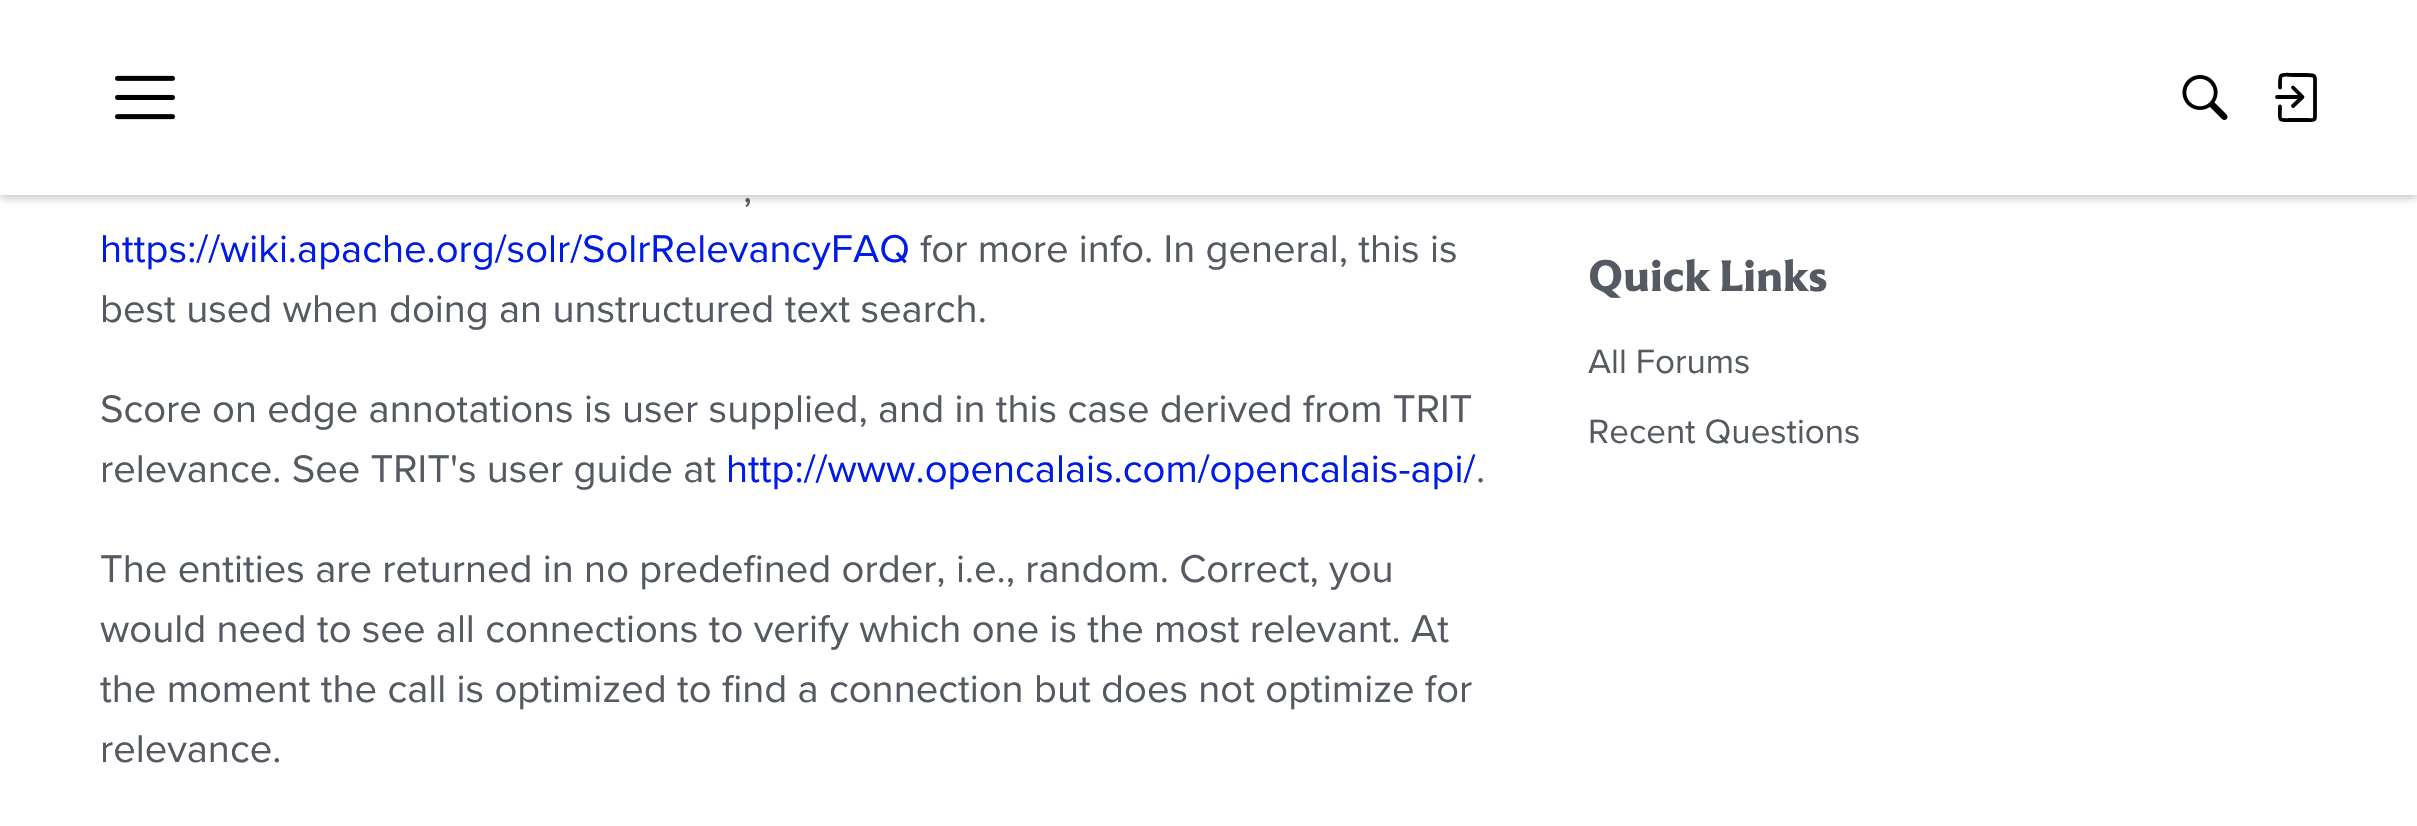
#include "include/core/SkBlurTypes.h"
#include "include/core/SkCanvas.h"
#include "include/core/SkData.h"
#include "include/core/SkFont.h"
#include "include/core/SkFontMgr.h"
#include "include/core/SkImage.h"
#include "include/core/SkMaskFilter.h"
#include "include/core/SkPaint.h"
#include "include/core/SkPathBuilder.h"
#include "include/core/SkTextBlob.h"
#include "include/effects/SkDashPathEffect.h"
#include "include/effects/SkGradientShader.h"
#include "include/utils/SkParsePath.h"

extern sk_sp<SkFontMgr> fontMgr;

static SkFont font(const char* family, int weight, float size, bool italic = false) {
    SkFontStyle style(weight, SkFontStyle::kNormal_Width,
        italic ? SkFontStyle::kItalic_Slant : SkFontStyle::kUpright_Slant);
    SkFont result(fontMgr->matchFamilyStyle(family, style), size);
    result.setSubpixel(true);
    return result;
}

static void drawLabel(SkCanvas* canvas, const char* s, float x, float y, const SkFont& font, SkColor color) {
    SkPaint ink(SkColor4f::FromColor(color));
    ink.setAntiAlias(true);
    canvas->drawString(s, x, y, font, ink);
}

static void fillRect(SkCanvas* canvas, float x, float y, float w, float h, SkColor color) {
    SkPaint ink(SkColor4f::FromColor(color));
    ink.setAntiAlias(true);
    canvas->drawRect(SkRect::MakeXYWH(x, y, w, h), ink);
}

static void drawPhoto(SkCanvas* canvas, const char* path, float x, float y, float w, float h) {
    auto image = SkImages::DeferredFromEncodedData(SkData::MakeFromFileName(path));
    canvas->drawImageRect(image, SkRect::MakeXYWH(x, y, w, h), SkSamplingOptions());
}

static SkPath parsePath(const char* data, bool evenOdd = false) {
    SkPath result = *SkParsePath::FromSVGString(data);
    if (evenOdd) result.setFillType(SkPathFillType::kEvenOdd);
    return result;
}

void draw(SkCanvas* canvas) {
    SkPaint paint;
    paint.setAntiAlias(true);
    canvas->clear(0xFFFFFFFF);
    paint.setColor(0x38000000);
    paint.setMaskFilter(SkMaskFilter::MakeBlur(kNormal_SkBlurStyle, 4));
    canvas->drawRect(SkRect::MakeXYWH(0, 3, 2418, 195), paint);
    paint.setMaskFilter(nullptr);
    fillRect(canvas, 0, 0, 2417, 195, 0xFFFFFFFF);
    drawPhoto(canvas, "assets/img1.png", 115, 75, 60, 45);
    drawPhoto(canvas, "assets/img2.png", 2182, 75, 46, 45);
    paint.setStroke(true);
    paint.setStrokeWidth(3.8f);
    paint.setStrokeCap(SkPaint::kRound_Cap);
    paint.setStrokeJoin(SkPaint::kRound_Join);
    paint.setColor(0xFF000000);
    canvas->drawPath(parsePath("M2293 106L2302.5 97L2293 87.5"), paint);
    paint.setStrokeJoin(SkPaint::kMiter_Join);
    canvas->drawPath(parsePath("M2301.5 97H2277"), paint);
    paint.setStrokeJoin(SkPaint::kRound_Join);
    canvas->drawPath(parsePath("M2280 87.5C2280 71.5 2279 75 2297.5 75H2307C2316.5 75 2315 76 2315 85.5V117C2315 121 2311 120 2308 120H2293C2277 120 2280 121.5 2280 106.5"), paint);
    SkFont font1 = font("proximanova", 400, 40);
    drawLabel(canvas, ",", 743, 202, font1, 0xFF555A62);
    drawLabel(canvas, "https://wiki.apache.org/solr/SolrRelevancyFAQ", 100, 262, font1, 0xFF001BE6);
    drawLabel(canvas, "for more info. In general, this is", 920, 262, font1, 0xFF555A62);
    drawLabel(canvas, "best used when doing an unstructured text search.", 100, 322, font1, 0xFF555A62);
    drawLabel(canvas, "Score on edge annotations is user supplied, and in this case derived from TRIT", 100, 422, font1, 0xFF555A62);
    drawLabel(canvas, "relevance. See TRIT's user guide at", 100, 482, font1, 0xFF555A62);
    drawLabel(canvas, "http://www.opencalais.com/opencalais-api/", 726, 482, font1, 0xFF001BE6);
    drawLabel(canvas, ".", 1476, 482, font1, 0xFF555A62);
    drawLabel(canvas, "The entities are returned in no predefined order, i.e., random. Correct, you", 100, 582, font1, 0xFF555A62);
    drawLabel(canvas, "would need to see all connections to verify which one is the most relevant. At", 100, 642, font1, 0xFF555A62);
    drawLabel(canvas, "the moment the call is optimized to find a connection but does not optimize for", 100, 702, font1, 0xFF555A62);
    drawLabel(canvas, "relevance.", 100, 762, font1, 0xFF555A62);
    SkFont font2 = font("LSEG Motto", 700, 45);
    drawLabel(canvas, "Quick Links", 1588, 291, font2, 0xFF555A62);
    SkFont font3 = font("proximanova", 400, 35);
    drawLabel(canvas, "All Forums", 1588, 373, font3, 0xFF555A62);
    drawLabel(canvas, "Recent Questions", 1588, 443, font3, 0xFF555A62);
}
